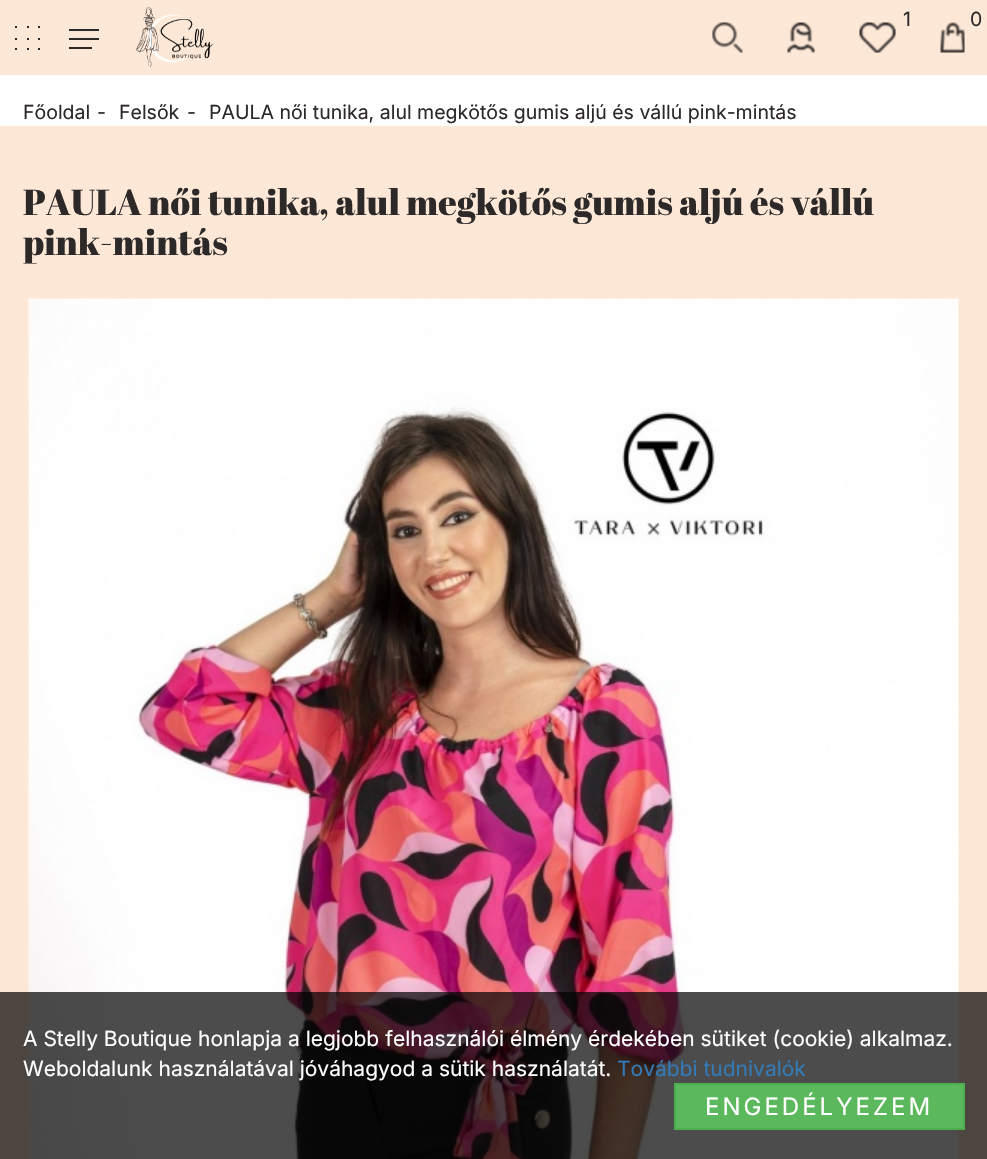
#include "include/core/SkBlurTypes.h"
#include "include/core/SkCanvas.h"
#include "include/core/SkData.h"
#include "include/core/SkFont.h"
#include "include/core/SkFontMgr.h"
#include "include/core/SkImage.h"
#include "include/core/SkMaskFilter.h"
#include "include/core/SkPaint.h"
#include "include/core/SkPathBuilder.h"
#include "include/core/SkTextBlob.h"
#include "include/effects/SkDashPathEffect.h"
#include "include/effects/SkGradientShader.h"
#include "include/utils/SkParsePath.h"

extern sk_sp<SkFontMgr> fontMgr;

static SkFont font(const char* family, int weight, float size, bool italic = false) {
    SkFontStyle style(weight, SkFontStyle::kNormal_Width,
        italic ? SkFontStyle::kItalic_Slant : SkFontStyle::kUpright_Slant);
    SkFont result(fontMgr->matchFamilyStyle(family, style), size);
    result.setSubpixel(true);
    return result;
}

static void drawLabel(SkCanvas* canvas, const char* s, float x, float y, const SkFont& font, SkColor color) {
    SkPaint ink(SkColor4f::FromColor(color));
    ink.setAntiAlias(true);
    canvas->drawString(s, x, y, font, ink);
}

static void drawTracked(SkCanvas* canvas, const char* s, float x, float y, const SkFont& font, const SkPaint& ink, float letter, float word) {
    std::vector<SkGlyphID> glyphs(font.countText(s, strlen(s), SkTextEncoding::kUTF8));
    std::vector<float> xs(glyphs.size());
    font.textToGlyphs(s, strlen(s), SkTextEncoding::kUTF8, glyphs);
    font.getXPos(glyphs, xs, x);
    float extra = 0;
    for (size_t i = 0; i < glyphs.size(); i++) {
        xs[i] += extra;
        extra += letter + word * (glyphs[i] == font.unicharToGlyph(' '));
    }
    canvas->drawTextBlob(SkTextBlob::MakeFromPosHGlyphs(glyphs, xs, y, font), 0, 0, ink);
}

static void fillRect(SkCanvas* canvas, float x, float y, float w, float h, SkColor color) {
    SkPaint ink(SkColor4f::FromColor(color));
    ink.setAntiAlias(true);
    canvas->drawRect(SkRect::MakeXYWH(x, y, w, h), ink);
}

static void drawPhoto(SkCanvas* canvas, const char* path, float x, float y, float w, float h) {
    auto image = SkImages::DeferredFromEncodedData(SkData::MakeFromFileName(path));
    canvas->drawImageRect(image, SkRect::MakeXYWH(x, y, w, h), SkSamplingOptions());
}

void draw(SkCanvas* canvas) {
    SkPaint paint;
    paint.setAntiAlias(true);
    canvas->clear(0xFFFFFFFF);
    fillRect(canvas, 0, 0, 987, 75, 0xFFFDE8D7);
    fillRect(canvas, 27, 26, 2, 2, 0xFF2D2929);
    fillRect(canvas, 15, 26, 2, 2, 0xFF2D2929);
    fillRect(canvas, 38, 26, 2, 2, 0xFF2D2929);
    fillRect(canvas, 27, 38, 2, 2, 0xFF2D2929);
    fillRect(canvas, 15, 38, 2, 2, 0xFF2D2929);
    fillRect(canvas, 38, 38, 2, 2, 0xFF2D2929);
    fillRect(canvas, 27, 48, 2, 2, 0xFF2D2929);
    fillRect(canvas, 15, 48, 2, 2, 0xFF2D2929);
    fillRect(canvas, 38, 48, 2, 2, 0xFF2D2929);
    fillRect(canvas, 69, 29, 30, 2, 0xFF2D2929);
    fillRect(canvas, 69, 38, 30, 2, 0xFF2D2929);
    fillRect(canvas, 69, 47, 23, 2, 0xFF2D2929);
    drawPhoto(canvas, "assets/img1.png", 136, 7, 77, 61);
    SkFont font1 = font("Inter", 400, 19.5f);
    drawLabel(canvas, "1", 903, 26, font1, 0xFF2D2929);
    drawPhoto(canvas, "assets/img2.png", 859, 22, 37, 31);
    drawLabel(canvas, "0", 970, 26, font1, 0xFF2D2929);
    drawPhoto(canvas, "assets/img3.png", 940, 22, 25, 31);
    drawPhoto(canvas, "assets/img4.png", 712, 22, 31, 31);
    drawPhoto(canvas, "assets/img5.png", 787, 22, 28, 31);
    drawLabel(canvas, "Főoldal", 23, 119, font1, 0xFF2D2929);
    drawLabel(canvas, "-", 97, 119, font1, 0xFF2D2929);
    drawLabel(canvas, "Felsők", 119, 119, font1, 0xFF2D2929);
    drawLabel(canvas, "-", 187, 119, font1, 0xFF2D2929);
    drawLabel(canvas, "PAULA női tunika, alul megkötős gumis aljú és vállú pink-mintás", 209, 119, font1, 0xFF2D2929);
    fillRect(canvas, 0, 126, 987, 1033, 0xFFFDE8D7);
    SkFont font2 = font("Abril Fatface", 400, 36);
    drawLabel(canvas, "PAULA női tunika, alul megkötős gumis aljú és vállú", 23, 215, font2, 0xFF2D2929);
    drawLabel(canvas, "pink-mintás", 23, 255, font2, 0xFF2D2929);
    drawPhoto(canvas, "assets/img6.png", 28, 298, 931, 861);
    fillRect(canvas, 0, 992, 987, 167, 0xB3000000);
    SkFont font3 = font("Inter", 400, 21);
    drawLabel(canvas, "A Stelly Boutique honlapja a legjobb felhasználói élmény érdekében sütiket (cookie) alkalmaz.", 23, 1046, font3, 0xFFFFFFFF);
    drawLabel(canvas, "Weboldalunk használatával jóváhagyod a sütik használatát.", 23, 1076, font3, 0xFFFFFFFF);
    drawLabel(canvas, "További tudnivalók", 617, 1076, font3, 0xFF337AB7);
    paint.setColor(0xFF5CB85C);
    canvas->drawRect(SkRect::MakeXYWH(675, 1084, 289, 45), paint);
    paint.setStroke(true);
    paint.setStrokeWidth(2);
    paint.setColor(0xFF4CAE4C);
    canvas->drawRect(SkRect::MakeXYWH(675, 1084, 289, 45), paint);
    SkFont font4 = font("Inter", 400, 24);
    paint.setStroke(false);
    paint.setColor(0xFFFFFFFF);
    drawTracked(canvas, "ENGEDÉLYEZEM", 705, 1115, font4, paint, 3, 0);
}
